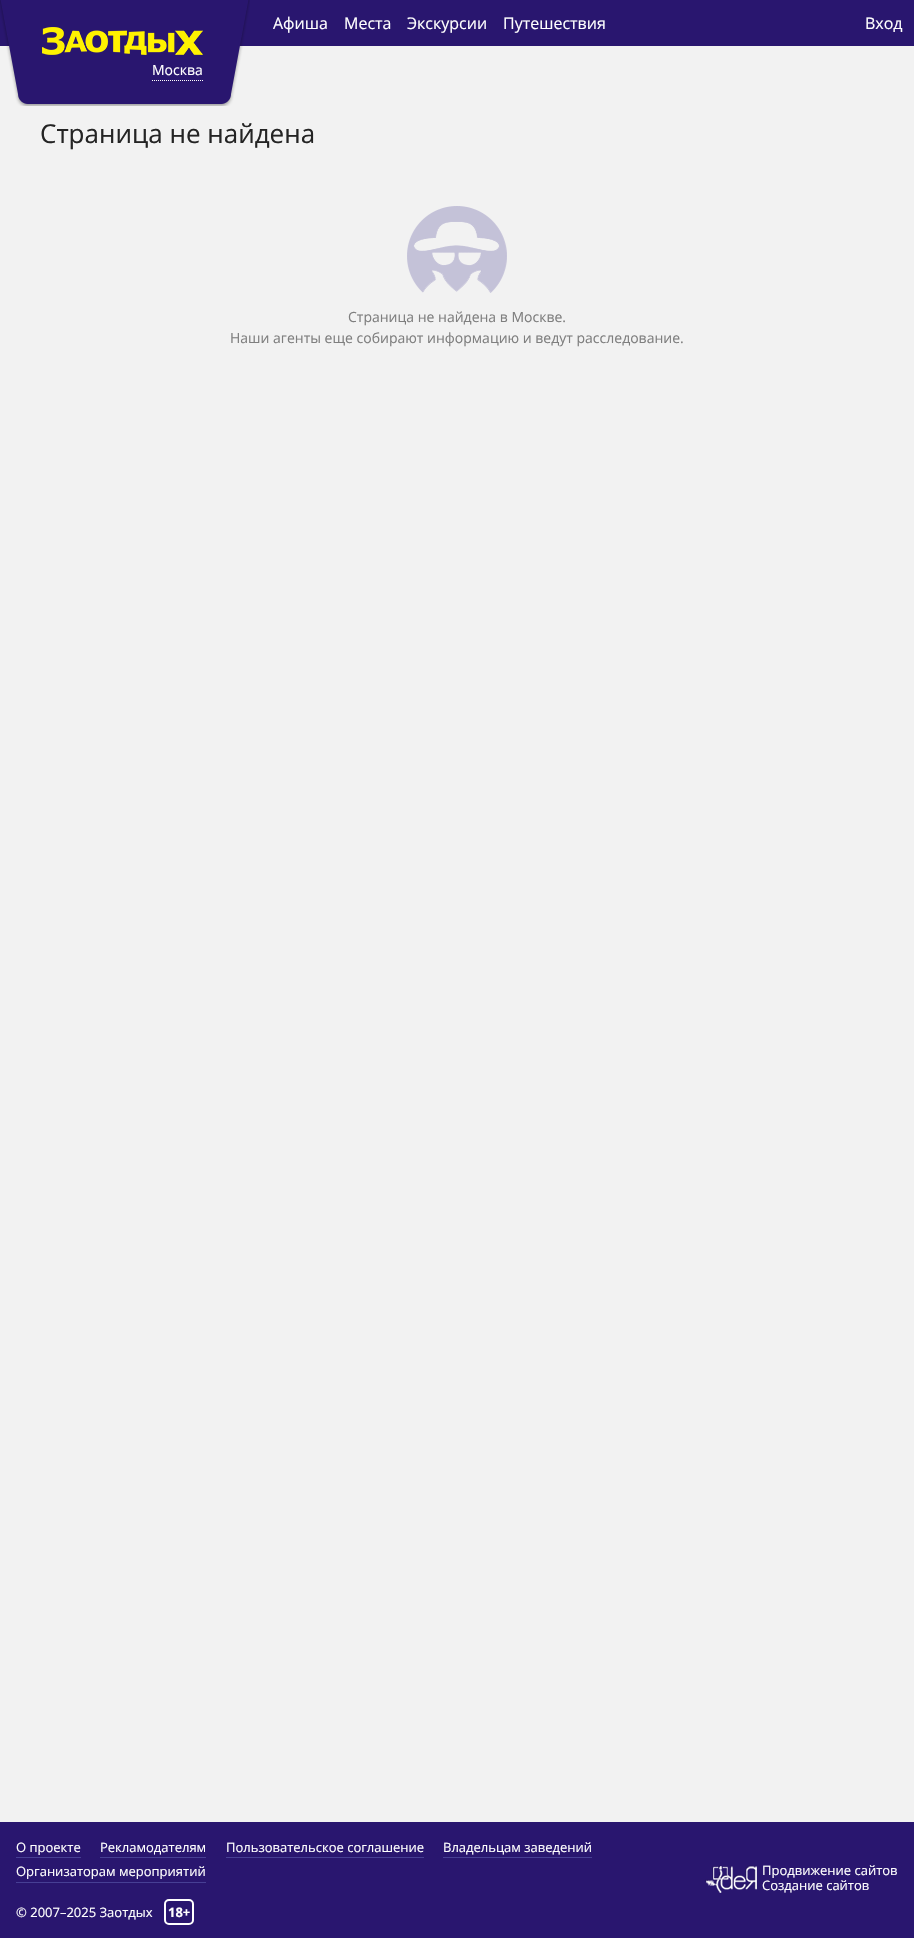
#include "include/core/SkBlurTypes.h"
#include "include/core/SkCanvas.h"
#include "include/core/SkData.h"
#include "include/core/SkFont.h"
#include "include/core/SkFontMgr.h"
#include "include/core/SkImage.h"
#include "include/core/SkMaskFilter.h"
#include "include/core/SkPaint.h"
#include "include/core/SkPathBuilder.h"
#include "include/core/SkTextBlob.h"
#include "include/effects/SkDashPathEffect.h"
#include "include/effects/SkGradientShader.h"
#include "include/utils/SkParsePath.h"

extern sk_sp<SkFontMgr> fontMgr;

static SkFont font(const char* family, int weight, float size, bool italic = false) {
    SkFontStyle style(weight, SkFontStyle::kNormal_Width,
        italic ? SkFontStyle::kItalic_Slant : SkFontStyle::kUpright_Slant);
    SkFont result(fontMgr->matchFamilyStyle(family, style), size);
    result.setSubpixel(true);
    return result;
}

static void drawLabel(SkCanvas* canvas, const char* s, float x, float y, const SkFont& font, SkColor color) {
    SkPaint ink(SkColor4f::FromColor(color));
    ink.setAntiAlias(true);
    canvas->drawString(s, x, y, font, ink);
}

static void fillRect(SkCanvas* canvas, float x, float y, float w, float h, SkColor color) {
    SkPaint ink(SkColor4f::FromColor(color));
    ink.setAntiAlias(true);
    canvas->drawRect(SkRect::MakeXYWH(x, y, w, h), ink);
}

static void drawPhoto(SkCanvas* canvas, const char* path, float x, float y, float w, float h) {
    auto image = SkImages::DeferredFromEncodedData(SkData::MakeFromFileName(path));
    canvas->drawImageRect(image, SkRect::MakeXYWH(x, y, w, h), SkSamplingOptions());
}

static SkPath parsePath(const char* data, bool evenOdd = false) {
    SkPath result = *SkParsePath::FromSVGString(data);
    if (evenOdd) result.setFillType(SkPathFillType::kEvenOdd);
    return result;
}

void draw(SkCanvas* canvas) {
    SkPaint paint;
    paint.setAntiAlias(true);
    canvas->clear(0xFFF2F2F2);
    fillRect(canvas, 0, 0, 914, 46, 0xFF29166F);
    SkFont font1 = font("Open Sans", 400, 16);
    drawLabel(canvas, "Афиша", 273, 29, font1, 0xFFFFFFFF);
    drawLabel(canvas, "Места", 344, 29, font1, 0xFFFFFFFF);
    drawLabel(canvas, "Экскурсии", 407, 29, font1, 0xFFFFFFFF);
    drawLabel(canvas, "Путешествия", 503, 29, font1, 0xFFFFFFFF);
    drawLabel(canvas, "Вход", 865, 29, font1, 0xFFFFFFFF);
    drawPhoto(canvas, "assets/img1.png", 0, 0, 250, 106);
    paint.setStroke(true);
    paint.setStrokeWidth(1);
    paint.setColor(0xFFFFFFFF);
    paint.setPathEffect(SkDashPathEffect::Make({{1, 1}}, 0));
    canvas->drawPath(parsePath("M152 80.5H203"), paint);
    paint.setPathEffect(nullptr);
    SkFont font2 = font("Open Sans", 400, 14);
    drawLabel(canvas, "Москва", 152, 75, font2, 0xFFFFFFFF);
    SkFont font3 = font("Open Sans", 400, 26);
    drawLabel(canvas, "Страница не найдена", 40, 143, font3, 0xFF242424);
    drawPhoto(canvas, "assets/img2.png", 407, 206, 100, 87);
    drawLabel(canvas, "Страница не найдена в Москве.", 348, 322, font2, 0xFF7F7F7F);
    drawLabel(canvas, "Наши агенты еще собирают информацию и ведут расследование.", 230, 343, font2, 0xFF7F7F7F);
    fillRect(canvas, 0, 1822, 914, 116, 0xFF29166F);
    fillRect(canvas, 16, 1857, 65, 1, 0xFF473F94);
    SkFont font4 = font("Open Sans", 400, 13);
    drawLabel(canvas, "О проекте", 16, 1852, font4, 0xFFFFFFFF);
    fillRect(canvas, 100, 1857, 106, 1, 0xFF473F94);
    drawLabel(canvas, "Рекламодателям", 100, 1852, font4, 0xFFFFFFFF);
    fillRect(canvas, 226, 1857, 198, 1, 0xFF473F94);
    drawLabel(canvas, "Пользовательское соглашение", 226, 1852, font4, 0xFFFFFFFF);
    fillRect(canvas, 443, 1857, 149, 1, 0xFF473F94);
    drawLabel(canvas, "Владельцам заведений", 443, 1852, font4, 0xFFFFFFFF);
    fillRect(canvas, 16, 1882, 190, 1, 0xFF473F94);
    drawLabel(canvas, "Организаторам мероприятий", 16, 1876, font4, 0xFFFFFFFF);
    drawLabel(canvas, "© 2007–2025 Заотдых", 16, 1917, font4, 0xFFFFFFFF);
    paint.setStrokeWidth(2);
    canvas->drawRoundRect(SkRect::MakeXYWH(165, 1900, 28, 24), 4, 4, paint);
    SkFont font5 = font("Open Sans", 700, 13);
    drawLabel(canvas, "18+", 168, 1917, font5, 0xFFFFFFFF);
    drawPhoto(canvas, "assets/img3.png", 705, 1865, 52, 28);
    drawLabel(canvas, "Продвижение сайтов", 762, 1875, font4, 0xFFFFFFFF);
    drawLabel(canvas, "Создание сайтов", 762, 1890, font4, 0xFFFFFFFF);
}
